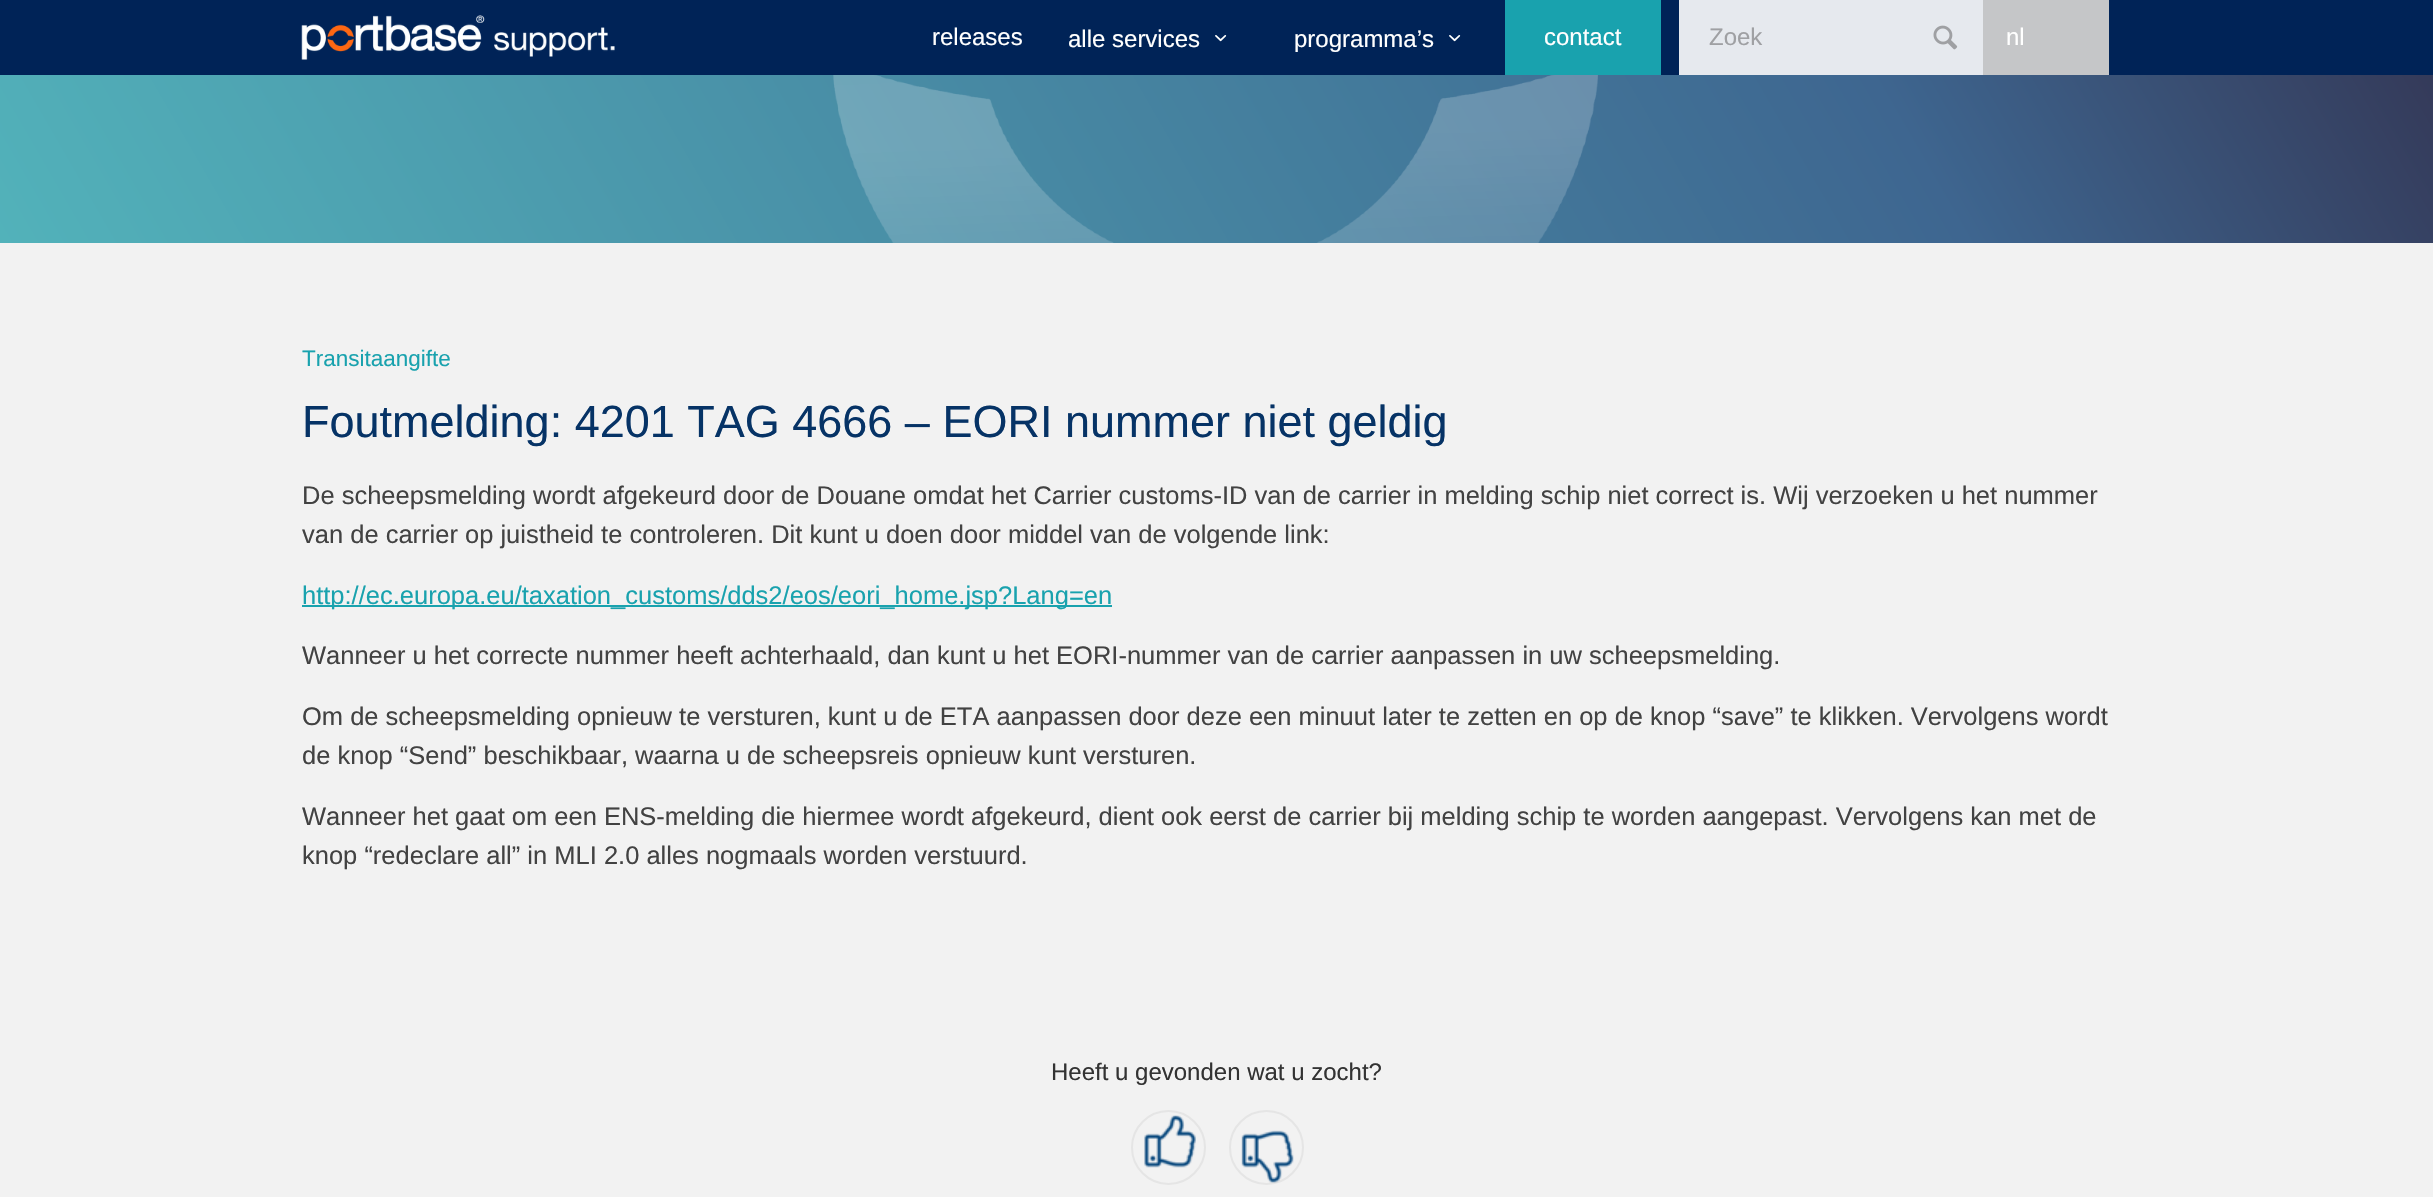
#include "include/core/SkBlurTypes.h"
#include "include/core/SkCanvas.h"
#include "include/core/SkData.h"
#include "include/core/SkFont.h"
#include "include/core/SkFontMgr.h"
#include "include/core/SkImage.h"
#include "include/core/SkMaskFilter.h"
#include "include/core/SkPaint.h"
#include "include/core/SkPathBuilder.h"
#include "include/core/SkTextBlob.h"
#include "include/effects/SkDashPathEffect.h"
#include "include/effects/SkGradientShader.h"
#include "include/utils/SkParsePath.h"

extern sk_sp<SkFontMgr> fontMgr;

static SkFont font(const char* family, int weight, float size, bool italic = false) {
    SkFontStyle style(weight, SkFontStyle::kNormal_Width,
        italic ? SkFontStyle::kItalic_Slant : SkFontStyle::kUpright_Slant);
    SkFont result(fontMgr->matchFamilyStyle(family, style), size);
    result.setSubpixel(true);
    return result;
}

static void drawLabel(SkCanvas* canvas, const char* s, float x, float y, const SkFont& font, SkColor color) {
    SkPaint ink(SkColor4f::FromColor(color));
    ink.setAntiAlias(true);
    canvas->drawString(s, x, y, font, ink);
}

static void fillRect(SkCanvas* canvas, float x, float y, float w, float h, SkColor color) {
    SkPaint ink(SkColor4f::FromColor(color));
    ink.setAntiAlias(true);
    canvas->drawRect(SkRect::MakeXYWH(x, y, w, h), ink);
}

static void drawPhoto(SkCanvas* canvas, const char* path, float x, float y, float w, float h) {
    auto image = SkImages::DeferredFromEncodedData(SkData::MakeFromFileName(path));
    canvas->drawImageRect(image, SkRect::MakeXYWH(x, y, w, h), SkSamplingOptions());
}

void draw(SkCanvas* canvas) {
    SkPaint paint;
    paint.setAntiAlias(true);
    canvas->clear(0xFFF2F2F2);
    fillRect(canvas, 0, 0, 2433, 75, 0xFF002357);
    drawPhoto(canvas, "assets/img1.png", 301, 15, 314, 45);
    SkFont font1 = font("Liberation Sans", 400, 24);
    drawLabel(canvas, "releases", 932, 45, font1, 0xFFFFFFFF);
    drawLabel(canvas, "alle services", 1068, 47, font1, 0xFFFFFFFF);
    drawPhoto(canvas, "assets/img2.png", 1215, 35, 12, 7);
    drawLabel(canvas, "programma’s", 1294, 47, font1, 0xFFFFFFFF);
    drawPhoto(canvas, "assets/img2.png", 1449, 35, 12, 7);
    fillRect(canvas, 1505, 0, 156, 75, 0xFF19A2AE);
    drawLabel(canvas, "contact", 1544, 45, font1, 0xFFFFFFFF);
    fillRect(canvas, 1679, 0, 304, 75, 0xFFE6E9EE);
    drawLabel(canvas, "Zoek", 1709, 45, font1, 0xFF9FA0A3);
    drawPhoto(canvas, "assets/img3.png", 1933, 25, 25, 25);
    fillRect(canvas, 1983, 0, 126, 75, 0xFFC5C6C8);
    drawLabel(canvas, "nl", 2006, 45, font1, 0xFFFFFFFF);
    {
        const SkColor colors[] = {0xFF32304D, 0xFF3E6690, 0xFF52B2BA};
        const float stops[] = {0, 0.26f, 1};
        const SkPoint ends[] = {{2213, -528}, {220, 624}};
        paint.setShader(SkGradientShader::MakeLinear(ends, colors, stops, 3, SkTileMode::kClamp));
        paint.setAlpha(255);
    }
    canvas->drawRect(SkRect::MakeXYWH(0, 75, 2433, 168), paint);
    drawPhoto(canvas, "assets/img4.png", 833, 75, 765, 168);
    SkFont font2 = font("Liberation Sans", 400, 22.5f);
    drawLabel(canvas, "Transitaangifte", 302, 366, font2, 0xFF19A2AE);
    SkFont font3 = font("Liberation Sans", 400, 45);
    drawLabel(canvas, "Foutmelding: 4201 TAG 4666 – EORI nummer niet geldig", 302, 437, font3, 0xFF063366);
    SkFont font4 = font("Liberation Sans", 400, 25.5f);
    drawLabel(canvas, "De scheepsmelding wordt afgekeurd door de Douane omdat het Carrier customs-ID van de carrier in melding schip niet correct is. Wij verzoeken u het nummer", 302, 504, font4, 0xFF424242);
    drawLabel(canvas, "van de carrier op juistheid te controleren. Dit kunt u doen door middel van de volgende link:", 302, 543, font4, 0xFF424242);
    fillRect(canvas, 302, 605, 810, 2, 0xFF19A2AE);
    drawLabel(canvas, "http://ec.europa.eu/taxation_customs/dds2/eos/eori_home.jsp?Lang=en", 302, 604, font4, 0xFF19A2AE);
    drawLabel(canvas, "Wanneer u het correcte nummer heeft achterhaald, dan kunt u het EORI-nummer van de carrier aanpassen in uw scheepsmelding.", 302, 664, font4, 0xFF424242);
    drawLabel(canvas, "Om de scheepsmelding opnieuw te versturen, kunt u de ETA aanpassen door deze een minuut later te zetten en op de knop “save” te klikken. Vervolgens wordt", 302, 725, font4, 0xFF424242);
    drawLabel(canvas, "de knop “Send” beschikbaar, waarna u de scheepsreis opnieuw kunt versturen.", 302, 764, font4, 0xFF424242);
    drawLabel(canvas, "Wanneer het gaat om een ENS-melding die hiermee wordt afgekeurd, dient ook eerst de carrier bij melding schip te worden aangepast. Vervolgens kan met de", 302, 825, font4, 0xFF424242);
    drawLabel(canvas, "knop “redeclare all” in MLI 2.0 alles nogmaals worden verstuurd.", 302, 864, font4, 0xFF424242);
    drawLabel(canvas, "Heeft u gevonden wat u zocht?", 1051, 1080, font1, 0xFF333333);
    paint.setStroke(true);
    paint.setStrokeWidth(2);
    paint.setShader(nullptr);
    paint.setColor(0xFFE5E5E5);
    canvas->drawCircle(1168.5f, 1147.5f, 36.5f, paint);
    drawPhoto(canvas, "assets/img5.png", 1144, 1115, 52, 53);
    canvas->drawCircle(1266.5f, 1147.5f, 36.5f, paint);
    drawPhoto(canvas, "assets/img6.png", 1241, 1130, 53, 53);
}
